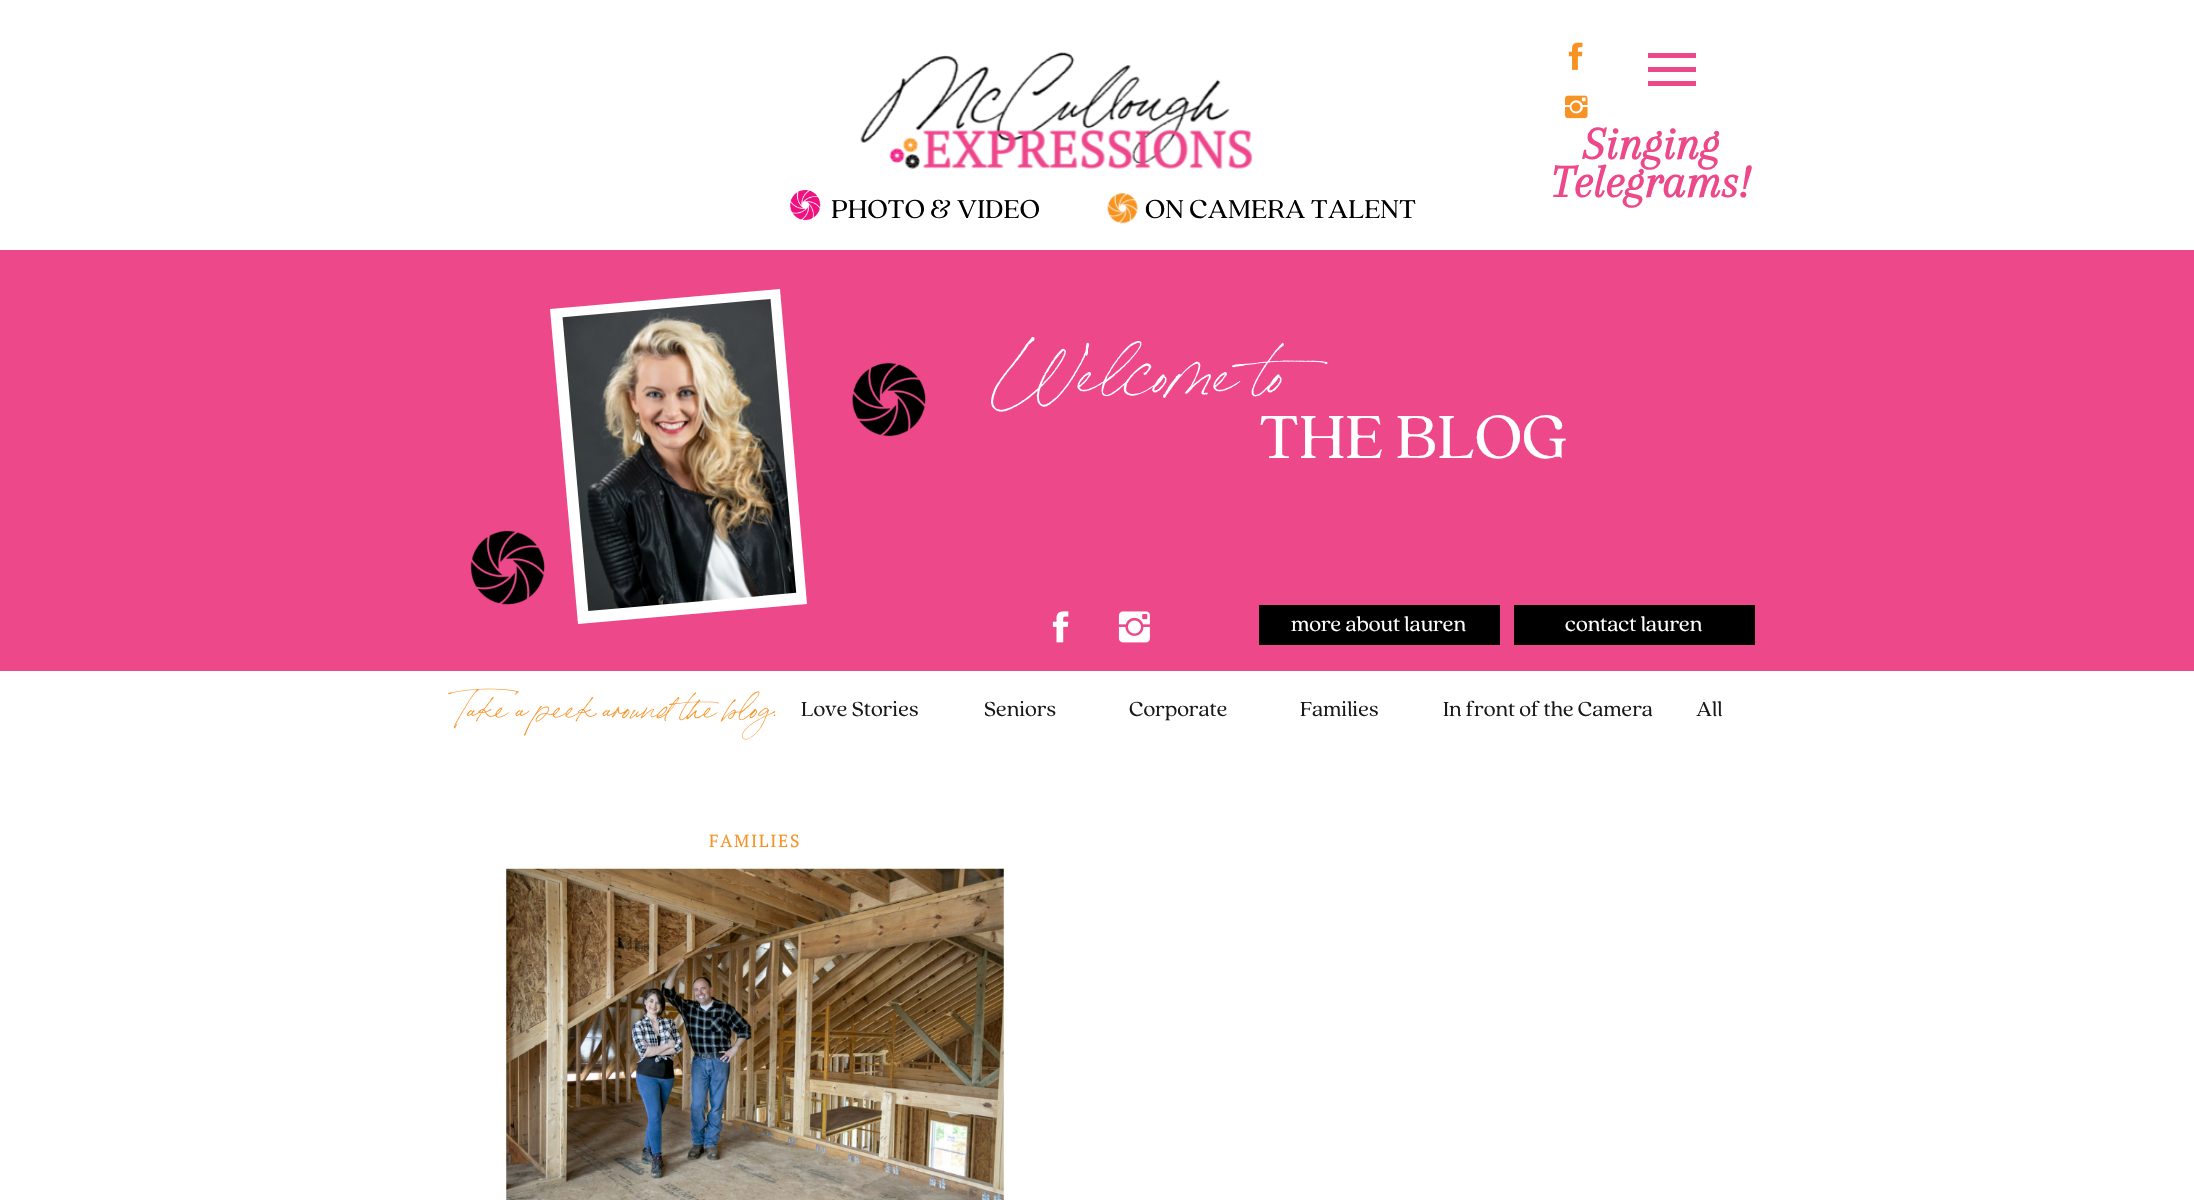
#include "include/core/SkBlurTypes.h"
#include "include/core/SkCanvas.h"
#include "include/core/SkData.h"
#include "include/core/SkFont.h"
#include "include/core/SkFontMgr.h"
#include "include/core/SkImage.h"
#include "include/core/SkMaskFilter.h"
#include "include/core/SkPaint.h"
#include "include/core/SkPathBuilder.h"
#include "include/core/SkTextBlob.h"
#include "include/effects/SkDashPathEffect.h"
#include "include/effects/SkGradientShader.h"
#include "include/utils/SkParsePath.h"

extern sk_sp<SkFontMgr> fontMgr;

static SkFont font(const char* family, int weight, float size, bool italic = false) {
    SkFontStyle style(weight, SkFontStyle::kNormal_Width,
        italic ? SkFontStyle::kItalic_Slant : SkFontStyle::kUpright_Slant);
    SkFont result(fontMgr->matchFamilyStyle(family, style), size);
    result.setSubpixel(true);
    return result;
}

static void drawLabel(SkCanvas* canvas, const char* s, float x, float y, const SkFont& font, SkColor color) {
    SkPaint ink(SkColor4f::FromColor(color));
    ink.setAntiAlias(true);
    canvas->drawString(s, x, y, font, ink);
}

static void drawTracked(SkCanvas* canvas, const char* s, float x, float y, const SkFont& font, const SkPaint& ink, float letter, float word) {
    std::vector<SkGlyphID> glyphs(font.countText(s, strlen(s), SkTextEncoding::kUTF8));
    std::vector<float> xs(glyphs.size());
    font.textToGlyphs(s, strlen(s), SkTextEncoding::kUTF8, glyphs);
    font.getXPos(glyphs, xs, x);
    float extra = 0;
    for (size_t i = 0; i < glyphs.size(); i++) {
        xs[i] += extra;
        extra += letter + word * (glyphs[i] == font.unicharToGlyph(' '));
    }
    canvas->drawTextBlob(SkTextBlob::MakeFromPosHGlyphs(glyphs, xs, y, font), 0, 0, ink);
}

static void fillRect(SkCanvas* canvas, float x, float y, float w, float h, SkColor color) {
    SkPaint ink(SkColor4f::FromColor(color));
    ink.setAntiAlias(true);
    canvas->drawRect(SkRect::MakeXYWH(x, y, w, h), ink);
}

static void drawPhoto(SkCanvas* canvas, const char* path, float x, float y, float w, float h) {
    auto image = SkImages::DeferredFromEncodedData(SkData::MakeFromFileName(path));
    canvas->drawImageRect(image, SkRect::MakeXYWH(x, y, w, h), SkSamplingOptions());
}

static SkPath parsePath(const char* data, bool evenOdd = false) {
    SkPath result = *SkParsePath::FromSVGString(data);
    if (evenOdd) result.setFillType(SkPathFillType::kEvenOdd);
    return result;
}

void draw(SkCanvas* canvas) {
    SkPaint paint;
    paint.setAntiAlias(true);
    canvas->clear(0xFFFFFFFF);
    drawPhoto(canvas, "assets/img1.png", 860, 52, 393, 117);
    drawPhoto(canvas, "assets/img2.png", 1568, 42, 15, 28);
    paint.setColor(0xFFEC488A);
    canvas->drawPath(parsePath("M1648 67H1696V72H1648ZM1648 53H1696V58H1648ZM1648 81H1696V86H1648Z"), paint);
    drawPhoto(canvas, "assets/img3.png", 1565, 95, 23, 24);
    drawPhoto(canvas, "assets/img4.png", 790, 189, 31, 32);
    SkFont font1 = font("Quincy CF", 400, 28.75f);
    drawLabel(canvas, "PHOTO & VIDEO", 831, 218, font1, 0xFF000000);
    drawPhoto(canvas, "assets/img5.png", 1107, 193, 31, 31);
    drawLabel(canvas, "ON CAMERA TALENT", 1145, 218, font1, 0xFF000000);
    SkFont font2 = font("Arapey", 700, 47.5f, true);
    drawLabel(canvas, "Singing", 1583, 159, font2, 0xFFEC488A);
    drawLabel(canvas, "Telegrams!", 1551, 197, font2, 0xFFEC488A);
    fillRect(canvas, 0, 250, 2194, 421, 0xFFEC488A);
    paint.setColor(0xFFFFFFFF);
    canvas->drawPath(parsePath("M550 309L780 289L807 604L578 624Z"), paint);
    drawPhoto(canvas, "assets/img6.png", 562, 299, 235, 312);
    drawPhoto(canvas, "assets/img7.png", 852, 362, 74, 75);
    drawPhoto(canvas, "assets/img8.png", 991, 336, 337, 76);
    SkFont font3 = font("Quincy CF", 400, 67.5f);
    drawLabel(canvas, "THE BLOG", 1259, 458, font3, 0xFFFFFFFF);
    drawPhoto(canvas, "assets/img9.png", 470, 530, 75, 75);
    drawPhoto(canvas, "assets/img10.png", 1052, 611, 17, 32);
    drawPhoto(canvas, "assets/img11.png", 1118, 611, 32, 32);
    fillRect(canvas, 1259, 605, 241, 40, 0xFF000000);
    fillRect(canvas, 1514, 605, 241, 40, 0xFF000000);
    SkFont font4 = font("Quincy CF", 400, 22.5f);
    drawLabel(canvas, "more about lauren", 1291, 631, font4, 0xFFFFFFFF);
    drawLabel(canvas, "contact lauren", 1565, 631, font4, 0xFFFFFFFF);
    drawPhoto(canvas, "assets/img12.png", 448, 688, 328, 52);
    drawLabel(canvas, "Love Stories", 801, 716, font4, 0xFF19191A);
    drawLabel(canvas, "Seniors", 984, 716, font4, 0xFF19191A);
    drawLabel(canvas, "Corporate", 1129, 716, font4, 0xFF19191A);
    drawLabel(canvas, "Families", 1300, 716, font4, 0xFF19191A);
    drawLabel(canvas, "In front of the Camera", 1443, 716, font4, 0xFF19191A);
    drawLabel(canvas, "All", 1696, 716, font4, 0xFF19191A);
    SkFont font5 = font("PT Serif", 400, 17.5f);
    paint.setColor(0xFFF79225);
    drawTracked(canvas, "FAMILIES", 709, 847, font5, paint, 1.75f, 0);
    drawPhoto(canvas, "assets/img13.png", 506, 868, 498, 332);
}
